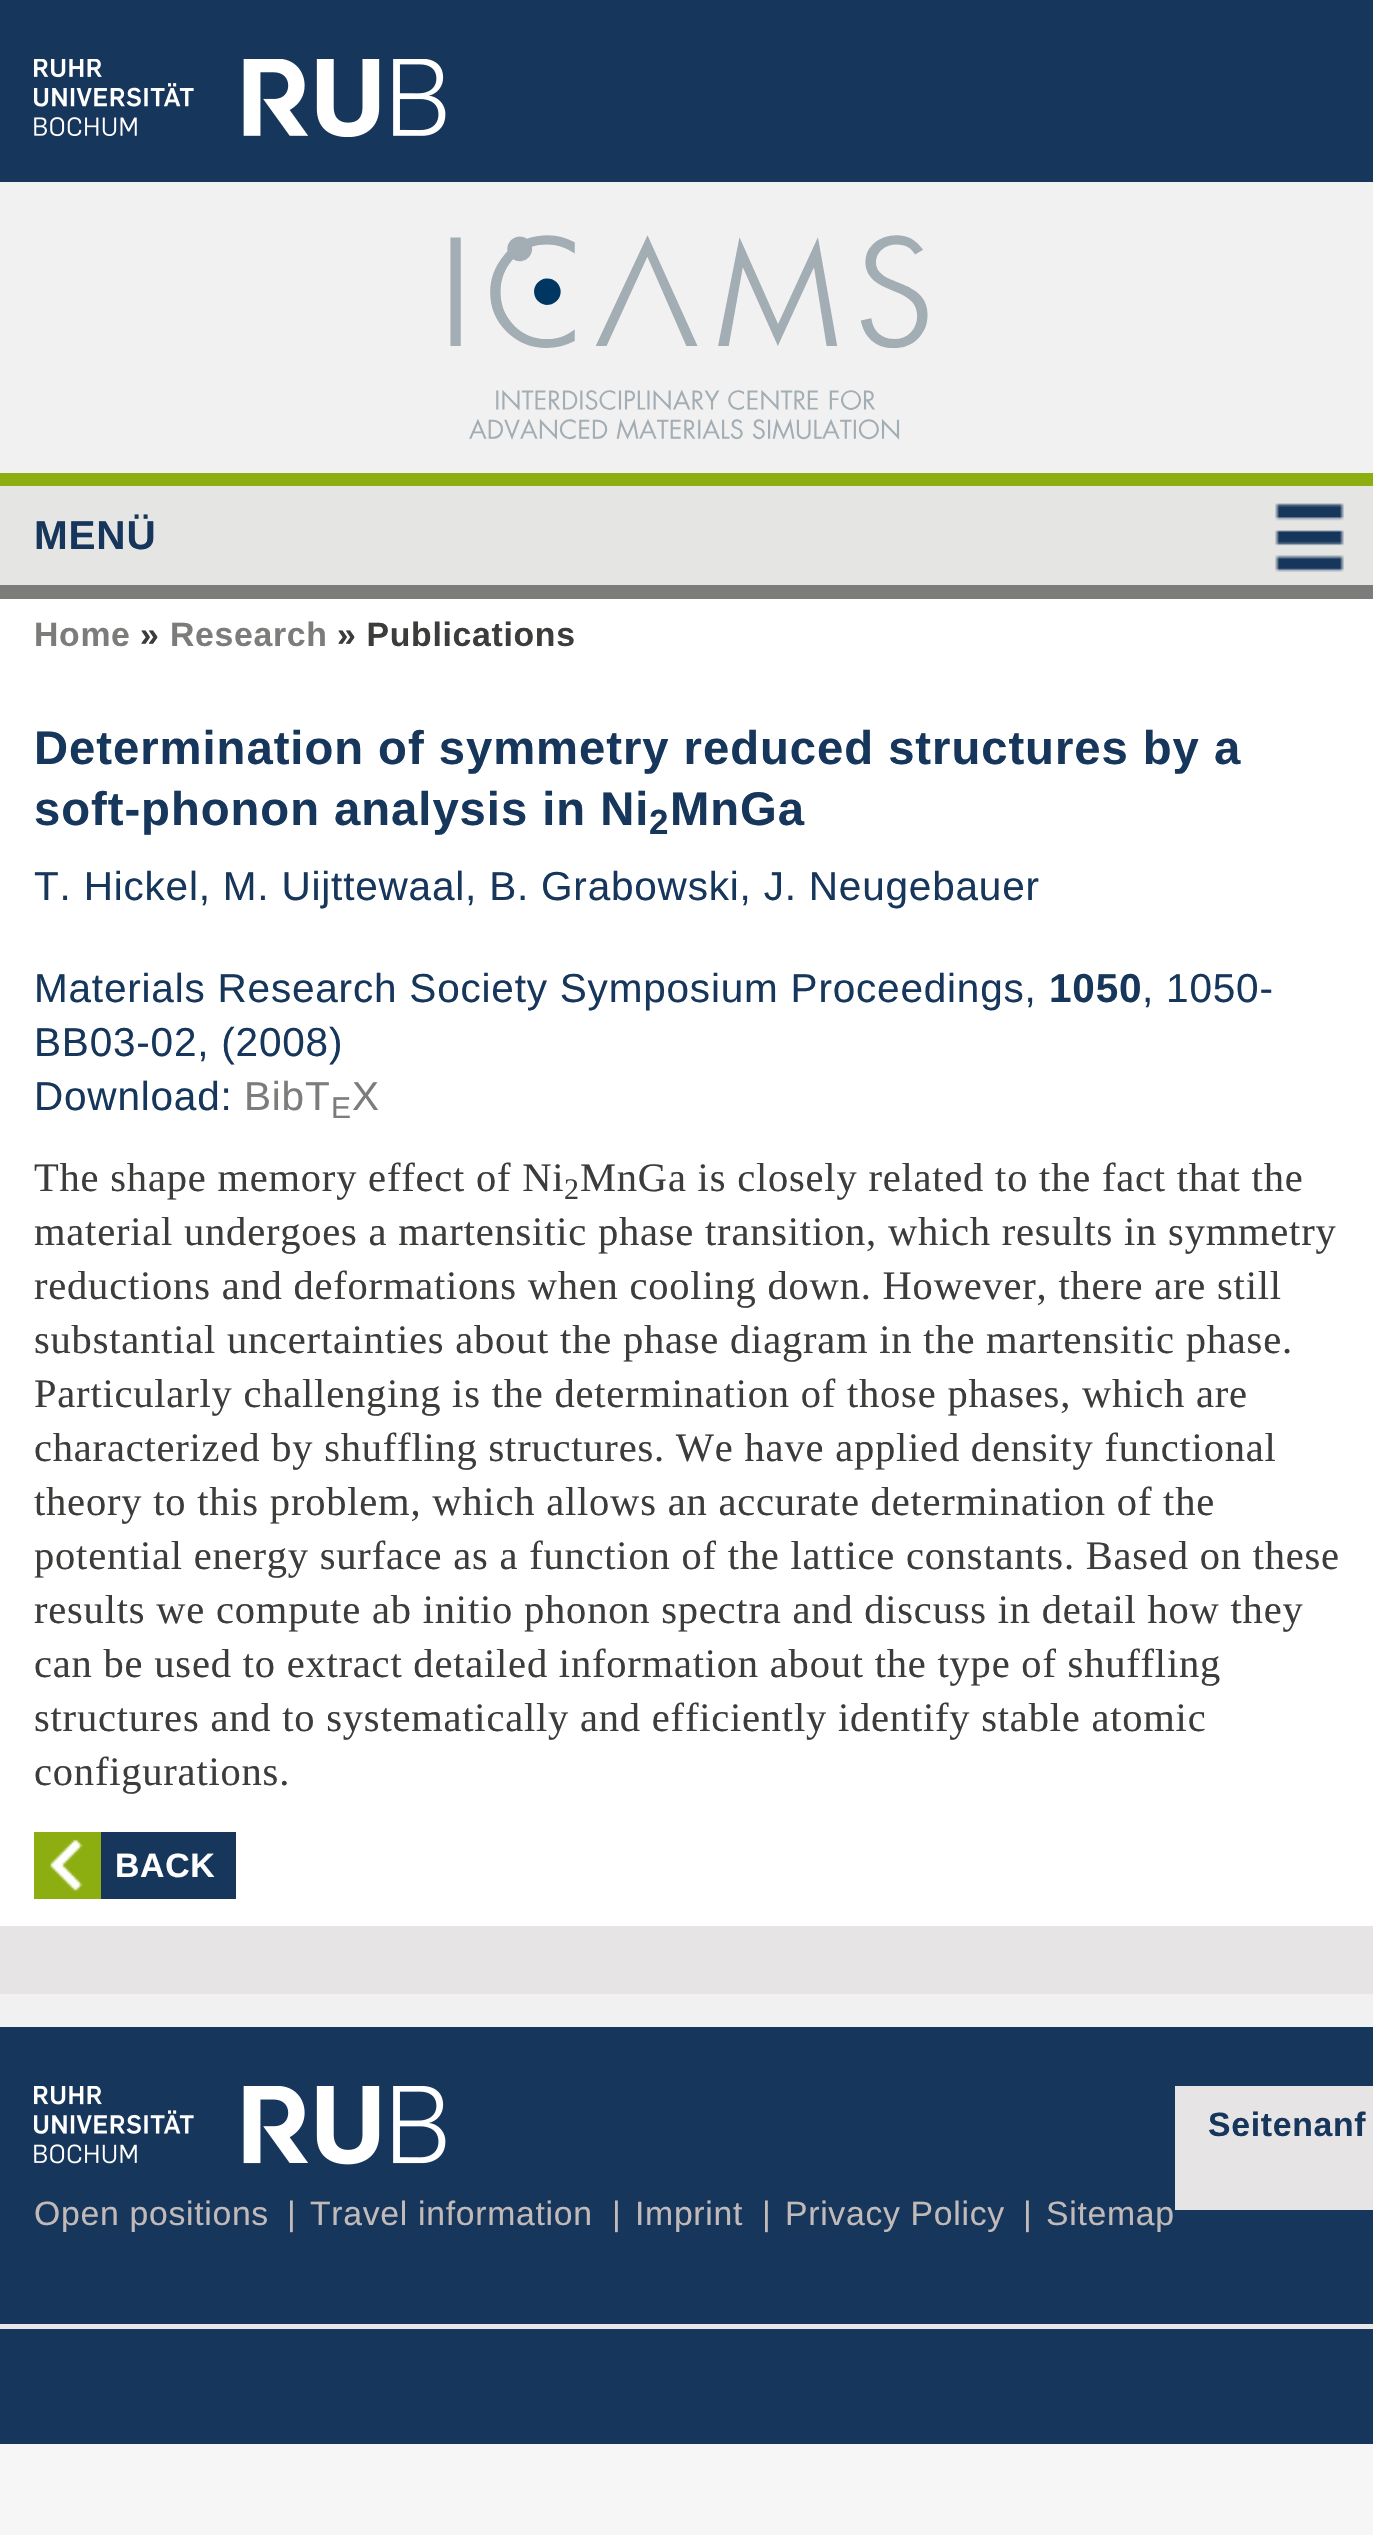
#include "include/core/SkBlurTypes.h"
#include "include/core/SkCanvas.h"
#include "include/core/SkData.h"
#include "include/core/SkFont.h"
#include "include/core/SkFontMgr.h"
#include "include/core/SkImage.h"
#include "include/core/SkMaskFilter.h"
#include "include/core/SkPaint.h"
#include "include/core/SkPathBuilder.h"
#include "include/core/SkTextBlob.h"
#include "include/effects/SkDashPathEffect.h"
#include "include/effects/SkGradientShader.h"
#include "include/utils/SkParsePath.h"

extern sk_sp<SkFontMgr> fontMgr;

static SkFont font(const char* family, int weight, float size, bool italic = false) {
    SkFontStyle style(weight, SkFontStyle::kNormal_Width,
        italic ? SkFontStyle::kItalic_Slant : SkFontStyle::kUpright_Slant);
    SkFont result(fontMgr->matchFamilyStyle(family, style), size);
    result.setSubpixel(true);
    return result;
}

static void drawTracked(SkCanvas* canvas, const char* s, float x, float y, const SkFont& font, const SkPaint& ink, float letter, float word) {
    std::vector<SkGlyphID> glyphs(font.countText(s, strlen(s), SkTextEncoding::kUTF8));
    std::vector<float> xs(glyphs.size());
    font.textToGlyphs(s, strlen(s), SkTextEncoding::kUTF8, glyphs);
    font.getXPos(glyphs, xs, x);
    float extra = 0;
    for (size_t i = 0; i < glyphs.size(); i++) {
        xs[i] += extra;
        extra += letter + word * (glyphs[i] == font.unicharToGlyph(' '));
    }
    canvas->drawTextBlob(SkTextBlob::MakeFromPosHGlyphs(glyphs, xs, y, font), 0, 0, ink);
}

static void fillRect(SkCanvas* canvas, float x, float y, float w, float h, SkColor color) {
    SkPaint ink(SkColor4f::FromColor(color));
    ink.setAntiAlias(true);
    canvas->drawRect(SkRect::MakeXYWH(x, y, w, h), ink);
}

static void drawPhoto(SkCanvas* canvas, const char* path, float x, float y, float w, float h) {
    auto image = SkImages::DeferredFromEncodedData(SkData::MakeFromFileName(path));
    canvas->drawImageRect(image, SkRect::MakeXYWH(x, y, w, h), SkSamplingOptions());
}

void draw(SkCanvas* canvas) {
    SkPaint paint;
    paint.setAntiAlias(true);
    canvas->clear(0xFFF6F6F6);
    fillRect(canvas, 0, 0, 1373, 182, 0xFF17365C);
    drawPhoto(canvas, "assets/img1.png", 34, 59, 412, 78);
    fillRect(canvas, 0, 182, 1373, 1845, 0xFFF2F1F1);
    drawPhoto(canvas, "assets/img2.png", 450, 235, 478, 205);
    fillRect(canvas, 0, 486, 1373, 99, 0xFFE5E5E4);
    fillRect(canvas, 0, 473, 1373, 13, 0xFF8DAE10);
    fillRect(canvas, 0, 585, 1373, 14, 0xFF7C7C7B);
    SkFont font1 = font("Liberation Sans", 700, 40.5f);
    paint.setColor(0xFF17365C);
    drawTracked(canvas, "MENÜ", 34, 549, font1, paint, 0.8f, 0);
    drawPhoto(canvas, "assets/img3.png", 1275, 503, 69, 69);
    fillRect(canvas, 0, 599, 1373, 1327, 0xFFFFFFFF);
    SkFont font2 = font("Liberation Sans", 700, 33.75f);
    paint.setColor(0xFF7C7C7B);
    drawTracked(canvas, "Home", 34, 646, font2, paint, 0.7f, 0);
    paint.setColor(0xFF3C3C3B);
    drawTracked(canvas, "»", 140, 646, font2, paint, 0.7f, 0);
    paint.setColor(0xFF7C7C7B);
    drawTracked(canvas, "Research", 170, 646, font2, paint, 0.7f, 0);
    paint.setColor(0xFF3C3C3B);
    drawTracked(canvas, "» Publications", 337, 646, font2, paint, 0.7f, 0);
    SkFont font3 = font("Liberation Sans", 700, 47.25f);
    paint.setColor(0xFF17365C);
    drawTracked(canvas, "Determination of symmetry reduced structures by a", 34, 764, font3, paint, 0.95f, 0);
    drawTracked(canvas, "soft-phonon analysis in Ni", 34, 825, font3, paint, 0.95f, 0);
    SkFont font4 = font("Liberation Sans", 700, 35);
    drawTracked(canvas, "2", 649, 834, font4, paint, 0.95f, 0);
    drawTracked(canvas, "MnGa", 670, 825, font3, paint, 0.95f, 0);
    SkFont font5 = font("Liberation Sans", 400, 40.5f);
    drawTracked(canvas, "T. Hickel, M. Uijttewaal, B. Grabowski, J. Neugebauer", 34, 900, font5, paint, 0.8f, 0);
    drawTracked(canvas, "Materials Research Society Symposium Proceedings,", 34, 1002, font5, paint, 0.8f, 0);
    drawTracked(canvas, "1050", 1049, 1002, font1, paint, 0.8f, 0);
    drawTracked(canvas, ", 1050-", 1142, 1002, font5, paint, 0.8f, 0);
    drawTracked(canvas, "BB03-02, (2008)", 34, 1056, font5, paint, 0.8f, 0);
    drawTracked(canvas, "Download:", 34, 1110, font5, paint, 0.8f, 0);
    paint.setColor(0xFF7C7C7B);
    drawTracked(canvas, "BibT", 244, 1110, font5, paint, 0.8f, 0);
    SkFont font6 = font("Liberation Sans", 400, 30);
    drawTracked(canvas, "E", 331, 1118, font6, paint, 0.8f, 0);
    drawTracked(canvas, "X", 352, 1110, font5, paint, 0.8f, 0);
    SkFont font7 = font("Liberation Serif", 400, 40.5f);
    paint.setColor(0xFF3C3C3B);
    drawTracked(canvas, "The shape memory effect of Ni", 34, 1191, font7, paint, 0.8f, 0);
    SkFont font8 = font("Liberation Serif", 400, 30);
    drawTracked(canvas, "2", 564, 1199, font8, paint, 0.8f, 0);
    drawTracked(canvas, "MnGa is closely related to the fact that the", 580, 1191, font7, paint, 0.8f, 0);
    drawTracked(canvas, "material undergoes a martensitic phase transition, which results in symmetry", 34, 1245, font7, paint, 0.8f, 0);
    drawTracked(canvas, "reductions and deformations when cooling down. However, there are still", 34, 1299, font7, paint, 0.8f, 0);
    drawTracked(canvas, "substantial uncertainties about the phase diagram in the martensitic phase.", 34, 1353, font7, paint, 0.8f, 0);
    drawTracked(canvas, "Particularly challenging is the determination of those phases, which are", 34, 1407, font7, paint, 0.8f, 0);
    drawTracked(canvas, "characterized by shuffling structures. We have applied density functional", 34, 1461, font7, paint, 0.8f, 0);
    drawTracked(canvas, "theory to this problem, which allows an accurate determination of the", 34, 1515, font7, paint, 0.8f, 0);
    drawTracked(canvas, "potential energy surface as a function of the lattice constants. Based on these", 34, 1569, font7, paint, 0.8f, 0);
    drawTracked(canvas, "results we compute ab initio phonon spectra and discuss in detail how they", 34, 1623, font7, paint, 0.8f, 0);
    drawTracked(canvas, "can be used to extract detailed information about the type of shuffling", 34, 1677, font7, paint, 0.8f, 0);
    drawTracked(canvas, "structures and to systematically and efficiently identify stable atomic", 34, 1731, font7, paint, 0.8f, 0);
    drawTracked(canvas, "configurations.", 34, 1785, font7, paint, 0.8f, 0);
    fillRect(canvas, 34, 1832, 67, 67, 0xFF8DAE10);
    drawPhoto(canvas, "assets/img4.png", 50, 1839, 33, 52);
    fillRect(canvas, 101, 1832, 135, 67, 0xFF17365C);
    paint.setColor(0xFFFFFFFF);
    drawTracked(canvas, "BACK", 115, 1877, font2, paint, 0.7f, 0);
    fillRect(canvas, 0, 1926, 1373, 68, 0xFFE6E4E4);
    fillRect(canvas, 0, 2027, 1373, 417, 0xFF17365C);
    fillRect(canvas, 1175, 2086, 198, 124, 0xFFE6E4E4);
    paint.setColor(0xFF17365C);
    drawTracked(canvas, "Seitenanf", 1208, 2136, font2, paint, 0.7f, 0);
    drawPhoto(canvas, "assets/img5.png", 34, 2086, 412, 79);
    SkFont font9 = font("Liberation Sans", 400, 33.75f);
    paint.setColor(0xFFC1BAB9);
    drawTracked(canvas, "Open positions", 34, 2225, font9, paint, 0.7f, 0);
    drawTracked(canvas, "|", 287, 2225, font9, paint, 0.7f, 0);
    drawTracked(canvas, "Travel information", 310, 2225, font9, paint, 0.7f, 0);
    drawTracked(canvas, "|", 612, 2225, font9, paint, 0.7f, 0);
    drawTracked(canvas, "Imprint", 635, 2225, font9, paint, 0.7f, 0);
    drawTracked(canvas, "|", 762, 2225, font9, paint, 0.7f, 0);
    drawTracked(canvas, "Privacy Policy", 785, 2225, font9, paint, 0.7f, 0);
    drawTracked(canvas, "|", 1023, 2225, font9, paint, 0.7f, 0);
    drawTracked(canvas, "Sitemap", 1046, 2225, font9, paint, 0.7f, 0);
    fillRect(canvas, 0, 2324, 1373, 5, 0xFFE7E7E7);
}
